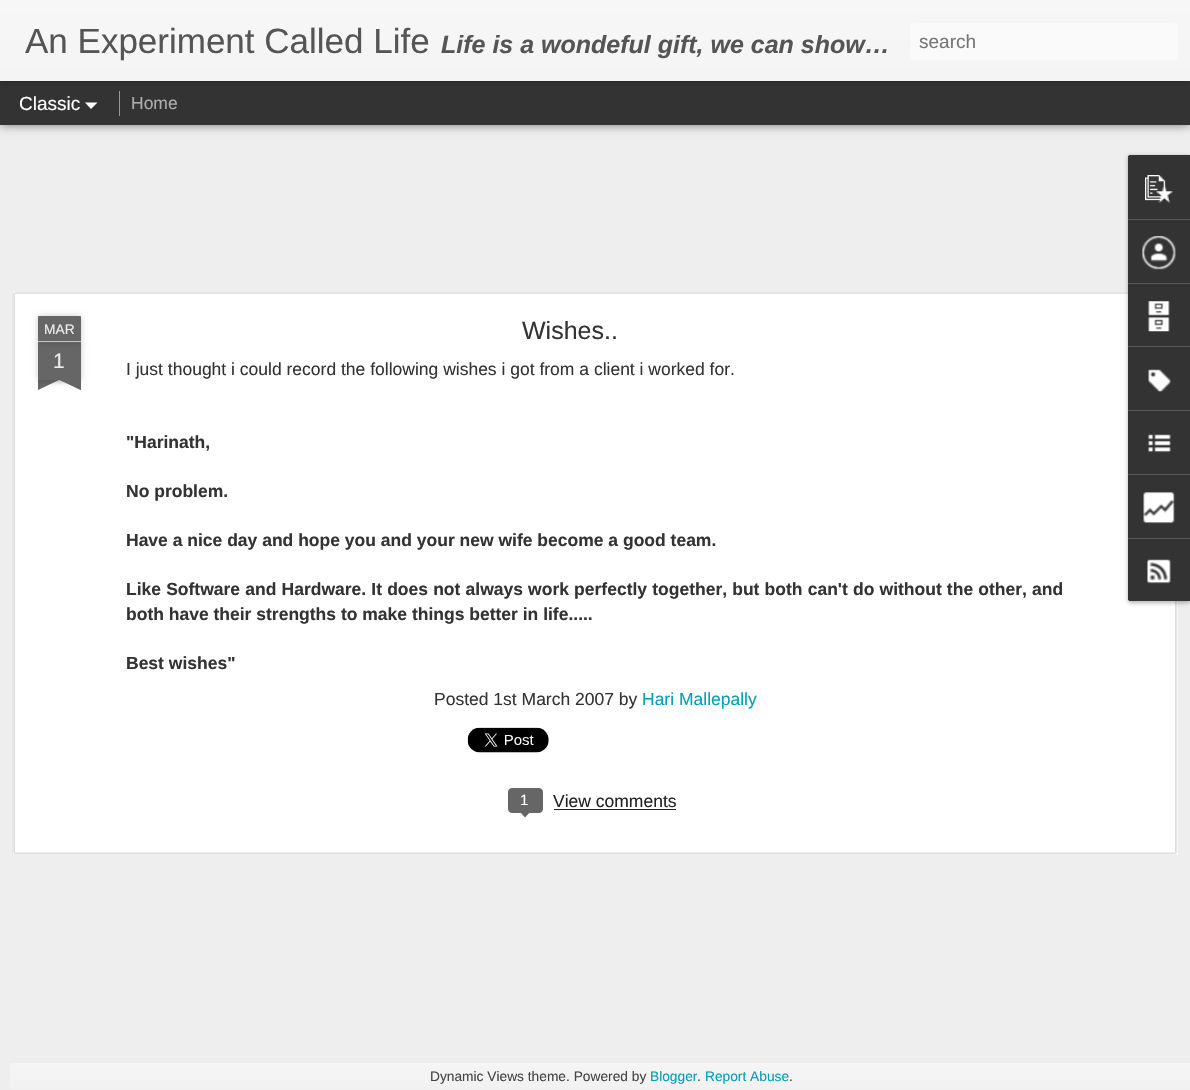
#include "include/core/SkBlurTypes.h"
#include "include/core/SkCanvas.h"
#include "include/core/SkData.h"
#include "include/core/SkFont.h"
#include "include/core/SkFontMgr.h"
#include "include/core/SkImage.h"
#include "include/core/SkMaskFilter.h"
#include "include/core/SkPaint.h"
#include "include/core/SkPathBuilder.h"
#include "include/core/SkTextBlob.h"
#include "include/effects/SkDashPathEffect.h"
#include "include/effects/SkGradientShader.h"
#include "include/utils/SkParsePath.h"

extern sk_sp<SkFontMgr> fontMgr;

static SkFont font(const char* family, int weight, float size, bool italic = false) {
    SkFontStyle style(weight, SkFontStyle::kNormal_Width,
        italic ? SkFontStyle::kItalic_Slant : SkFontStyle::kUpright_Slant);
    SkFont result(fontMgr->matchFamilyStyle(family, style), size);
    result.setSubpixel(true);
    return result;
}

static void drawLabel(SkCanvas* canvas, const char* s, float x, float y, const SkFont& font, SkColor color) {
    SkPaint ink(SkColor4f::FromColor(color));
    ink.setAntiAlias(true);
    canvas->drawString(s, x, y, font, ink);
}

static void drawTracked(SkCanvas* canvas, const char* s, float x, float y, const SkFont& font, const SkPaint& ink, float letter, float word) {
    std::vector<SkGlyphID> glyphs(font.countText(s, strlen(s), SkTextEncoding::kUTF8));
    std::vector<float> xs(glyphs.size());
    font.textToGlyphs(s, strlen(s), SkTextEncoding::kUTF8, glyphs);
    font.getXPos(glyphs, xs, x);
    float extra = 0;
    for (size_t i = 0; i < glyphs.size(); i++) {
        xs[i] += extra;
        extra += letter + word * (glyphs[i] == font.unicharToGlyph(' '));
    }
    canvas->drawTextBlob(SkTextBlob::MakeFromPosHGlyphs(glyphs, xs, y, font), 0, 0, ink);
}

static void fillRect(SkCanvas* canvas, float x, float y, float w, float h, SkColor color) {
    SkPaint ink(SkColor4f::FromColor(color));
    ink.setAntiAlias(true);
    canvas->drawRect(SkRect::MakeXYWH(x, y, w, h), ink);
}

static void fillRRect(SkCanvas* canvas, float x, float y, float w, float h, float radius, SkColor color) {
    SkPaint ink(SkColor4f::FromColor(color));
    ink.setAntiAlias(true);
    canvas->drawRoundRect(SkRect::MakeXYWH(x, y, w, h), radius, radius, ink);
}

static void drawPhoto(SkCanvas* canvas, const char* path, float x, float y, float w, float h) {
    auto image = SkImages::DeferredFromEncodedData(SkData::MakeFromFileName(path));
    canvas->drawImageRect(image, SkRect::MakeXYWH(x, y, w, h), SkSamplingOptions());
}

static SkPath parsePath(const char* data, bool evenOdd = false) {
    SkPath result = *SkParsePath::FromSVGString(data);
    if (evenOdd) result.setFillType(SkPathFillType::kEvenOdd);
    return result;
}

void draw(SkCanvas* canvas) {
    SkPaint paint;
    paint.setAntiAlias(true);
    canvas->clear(0xFFEEEEEE);
    paint.setColor(0x80000000);
    paint.setMaskFilter(SkMaskFilter::MakeBlur(kNormal_SkBlurStyle, 5));
    canvas->drawRect(SkRect::MakeXYWH(0, 81, 1190, 44), paint);
    paint.setMaskFilter(nullptr);
    fillRect(canvas, 0, 81, 1190, 44, 0xFF333333);
    paint.setColor(0x4D000000);
    paint.setMaskFilter(SkMaskFilter::MakeBlur(kNormal_SkBlurStyle, 3));
    canvas->drawRect(SkRect::MakeXYWH(0, 0, 1190, 81), paint);
    paint.setMaskFilter(nullptr);
    {
        const SkColor colors[] = {0xFFF7F7F7, 0xFFF4F4F4};
        const float stops[] = {0, 1};
        const SkPoint ends[] = {{0, 0}, {0, 81}};
        paint.setShader(SkGradientShader::MakeLinear(ends, colors, stops, 2, SkTileMode::kClamp));
        paint.setAlpha(255);
    }
    canvas->drawRect(SkRect::MakeXYWH(0, 0, 1190, 81), paint);
    SkFont font1 = font("Liberation Sans", 400, 35);
    drawLabel(canvas, "An Experiment Called Life", 25, 53, font1, 0xFF555555);
    SkFont font2 = font("Liberation Sans", 700, 25, true);
    drawLabel(canvas, "Life is a wondeful gift, we can show…", 441, 53, font2, 0xFF555555);
    fillRRect(canvas, 910, 23, 268, 37, 4, 0xFFFAFAFA);
    SkFont font3 = font("Liberation Sans", 400, 19);
    drawLabel(canvas, "search", 919, 48, font3, 0xFF757575);
    drawLabel(canvas, "Classic", 19, 110, font3, 0xFFFFFFFF);
    paint.setShader(nullptr);
    paint.setColor(0xFFFFFFFF);
    canvas->drawPath(parsePath("M85 102.5H97.5L91 109Z"), paint);
    fillRect(canvas, 119, 91, 1, 25, 0xFF999999);
    SkFont font4 = font("Liberation Sans", 400, 17.5f);
    drawLabel(canvas, "Home", 131, 109, font4, 0xFFADADAD);
    fillRect(canvas, 13, 291, 1165, 564, 0xFFFFFFFF);
    drawPhoto(canvas, "assets/img1.png", 12, 291, 1166, 564);
    paint.setColor(0x33000000);
    paint.setMaskFilter(SkMaskFilter::MakeBlur(kNormal_SkBlurStyle, 3));
    canvas->drawRect(SkRect::MakeXYWH(38, 343, 43, 37), paint);
    paint.setMaskFilter(nullptr);
    fillRect(canvas, 38, 343, 43, 37, 0xFF666666);
    paint.setMaskFilter(SkMaskFilter::MakeBlur(kNormal_SkBlurStyle, 3));
    canvas->drawRoundRect(SkRect::MakeXYWH(38, 316, 43, 27), 1, 1, paint);
    paint.setMaskFilter(nullptr);
    paint.setColor(0xFF666666);
    canvas->drawPath(parsePath("M39 316H80C80.5 316 81 316.5 81 317V343H38V317C38 316.5 38.5 316 39 316Z"), paint);
    fillRect(canvas, 38, 341, 43, 1, 0xFFC2C2C2);
    SkFont font5 = font("Liberation Sans", 400, 13.75f);
    drawLabel(canvas, "MAR", 44, 334, font5, 0xFFEEEEEE);
    SkFont font6 = font("Liberation Sans", 400, 21);
    drawLabel(canvas, "1", 53, 368, font6, 0xFFEEEEEE);
    canvas->save();
    canvas->clipRect(SkRect::MakeXYWH(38, 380, 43, 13));
    paint.setColor(0x33000000);
    paint.setMaskFilter(SkMaskFilter::MakeBlur(kNormal_SkBlurStyle, 3));
    canvas->drawRect(SkRect::MakeXYWH(26, 368, 63, 12), paint);
    paint.setMaskFilter(nullptr);
    canvas->restore();
    canvas->save();
    canvas->clipRect(SkRect::MakeXYWH(38, 380, 43, 13));
    paint.setColor(0xFF666666);
    canvas->drawPath(parsePath("M27 381L83 355L88 366L32 393Z"), paint);
    canvas->restore();
    canvas->save();
    canvas->clipRect(SkRect::MakeXYWH(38, 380, 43, 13));
    paint.setColor(0x33000000);
    paint.setMaskFilter(SkMaskFilter::MakeBlur(kNormal_SkBlurStyle, 3));
    canvas->drawRect(SkRect::MakeXYWH(30, 368, 63, 12), paint);
    paint.setMaskFilter(nullptr);
    canvas->restore();
    canvas->save();
    canvas->clipRect(SkRect::MakeXYWH(38, 380, 43, 13));
    paint.setColor(0xFF666666);
    canvas->drawPath(parsePath("M36 355L92 381L87 393L30 366Z"), paint);
    canvas->restore();
    SkFont font7 = font("Liberation Sans", 400, 25);
    drawLabel(canvas, "Wishes..", 522, 339, font7, 0xFF333333);
    drawLabel(canvas, "I just thought i could record the following wishes i got from a client i worked for.", 126, 375, font4, 0xFF333333);
    SkFont font8 = font("Liberation Sans", 700, 17.5f);
    drawLabel(canvas, "\"Harinath,", 126, 448, font8, 0xFF333333);
    drawLabel(canvas, "No problem.", 126, 497, font8, 0xFF333333);
    drawLabel(canvas, "Have a nice day and hope you and your new wife become a good team.", 126, 546, font8, 0xFF333333);
    paint.setColor(0xFF333333);
    drawTracked(canvas, "Like Software and Hardware. It does not always work perfectly together, but both can't do without the other, and", 126, 595, font8, paint, 0, 0.3f);
    drawLabel(canvas, "both have their strengths to make things better in life.....", 126, 620, font8, 0xFF333333);
    drawLabel(canvas, "Best wishes\"", 126, 669, font8, 0xFF333333);
    drawLabel(canvas, "Posted 1st March 2007 by", 434, 705, font4, 0xFF333333);
    drawLabel(canvas, "Hari Mallepally", 642, 705, font4, 0xFF009EB8);
    drawPhoto(canvas, "assets/img2.png", 467, 727, 82, 26);
    paint.setColor(0xFF666666);
    canvas->drawRoundRect(SkRect::MakeXYWH(508.5f, 788.5f, 34, 24), 3.5f, 3.5f, paint);
    paint.setStroke(true);
    paint.setStrokeWidth(1);
    canvas->drawRoundRect(SkRect::MakeXYWH(508.5f, 788.5f, 34, 24), 3.5f, 3.5f, paint);
    SkFont font9 = font("Liberation Sans", 400, 15);
    drawLabel(canvas, "1", 520, 805, font9, 0xFFFFFFFF);
    paint.setStroke(false);
    canvas->drawPath(parsePath("M519 811H531L525 817.5Z"), paint);
    drawLabel(canvas, "View comments", 553, 807, font4, 0xFF222222);
    fillRect(canvas, 554, 809, 122, 1, 0xFF222222);
    paint.setColor(0x4D000000);
    paint.setMaskFilter(SkMaskFilter::MakeBlur(kNormal_SkBlurStyle, 2));
    canvas->drawRoundRect(SkRect::MakeXYWH(1128, 156, 62, 447), 2.5f, 2.5f, paint);
    paint.setMaskFilter(nullptr);
    paint.setColor(0xFF333333);
    canvas->drawPath(parsePath("M1130.5 155H1190V601H1130.5C1129 601 1128 600 1128 598.5V157.5C1128 156 1129 155 1130.5 155Z"), paint);
    canvas->drawPath(parsePath("M1130.5 155H1190V219H1128V157.5C1128 156 1129 155 1130.5 155Z"), paint);
    drawPhoto(canvas, "assets/img3.png", 1145, 175, 28, 28);
    fillRect(canvas, 1128, 219, 62, 1, 0xFF585858);
    drawPhoto(canvas, "assets/img4.png", 1142, 236, 34, 34);
    fillRect(canvas, 1128, 283, 62, 1, 0xFF585858);
    drawPhoto(canvas, "assets/img5.png", 1148, 301, 22, 31);
    fillRect(canvas, 1128, 346, 62, 1, 0xFF585858);
    drawPhoto(canvas, "assets/img6.png", 1148, 369, 23, 23);
    fillRect(canvas, 1128, 410, 62, 1, 0xFF585858);
    drawPhoto(canvas, "assets/img7.png", 1148, 434, 23, 19);
    fillRect(canvas, 1128, 474, 62, 1, 0xFF585858);
    drawPhoto(canvas, "assets/img8.png", 1143, 492, 32, 32);
    canvas->drawPath(parsePath("M1128 538H1190V601H1130.5C1129 601 1128 600 1128 598.5Z"), paint);
    fillRect(canvas, 1128, 538, 62, 1, 0xFF585858);
    drawPhoto(canvas, "assets/img9.png", 1147, 559, 24, 25);
    {
        const SkColor colors[] = {0xFFF5F5F5, 0xFFF1F1F1};
        const float stops[] = {0, 1};
        const SkPoint ends[] = {{611, 1062}, {611, 1090}};
        paint.setShader(SkGradientShader::MakeLinear(ends, colors, stops, 2, SkTileMode::kClamp));
        paint.setAlpha(255);
    }
    canvas->drawRect(SkRect::MakeXYWH(10, 1063, 1180, 27), paint);
    drawLabel(canvas, "Dynamic Views theme. Powered by", 430, 1081, font5, 0xFF444444);
    drawLabel(canvas, "Blogger", 650, 1081, font5, 0xFF009EB8);
    drawLabel(canvas, ".", 697, 1081, font5, 0xFF444444);
    drawLabel(canvas, "Report Abuse", 705, 1081, font5, 0xFF009EB8);
    drawLabel(canvas, ".", 789, 1081, font5, 0xFF444444);
}
